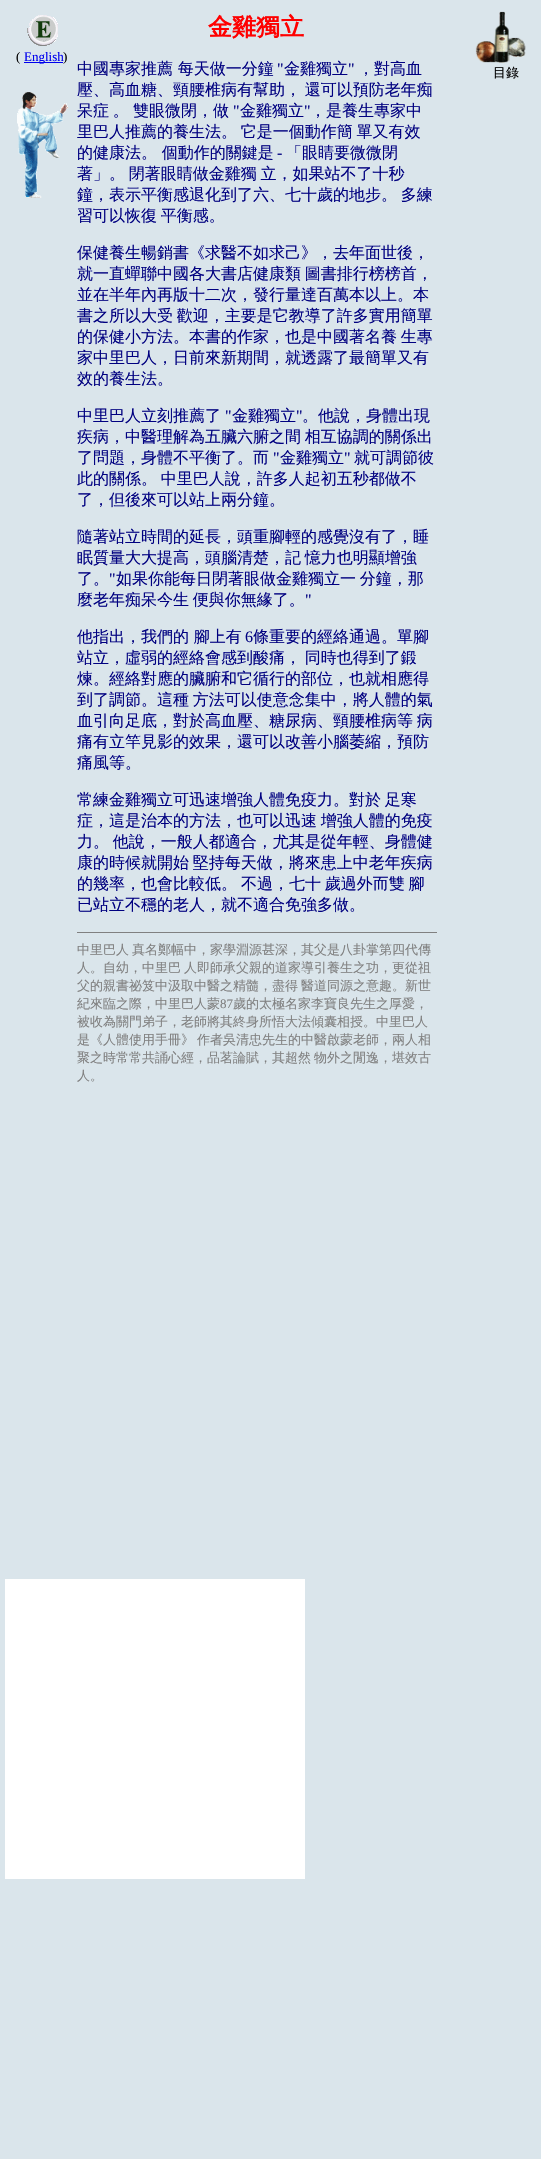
#include "include/core/SkBlurTypes.h"
#include "include/core/SkCanvas.h"
#include "include/core/SkData.h"
#include "include/core/SkFont.h"
#include "include/core/SkFontMgr.h"
#include "include/core/SkImage.h"
#include "include/core/SkMaskFilter.h"
#include "include/core/SkPaint.h"
#include "include/core/SkPathBuilder.h"
#include "include/core/SkTextBlob.h"
#include "include/effects/SkDashPathEffect.h"
#include "include/effects/SkGradientShader.h"
#include "include/utils/SkParsePath.h"

extern sk_sp<SkFontMgr> fontMgr;

static SkFont font(const char* family, int weight, float size, bool italic = false) {
    SkFontStyle style(weight, SkFontStyle::kNormal_Width,
        italic ? SkFontStyle::kItalic_Slant : SkFontStyle::kUpright_Slant);
    SkFont result(fontMgr->matchFamilyStyle(family, style), size);
    result.setSubpixel(true);
    return result;
}

static void drawLabel(SkCanvas* canvas, const char* s, float x, float y, const SkFont& font, SkColor color) {
    SkPaint ink(SkColor4f::FromColor(color));
    ink.setAntiAlias(true);
    canvas->drawString(s, x, y, font, ink);
}

static void drawTracked(SkCanvas* canvas, const char* s, float x, float y, const SkFont& font, const SkPaint& ink, float letter, float word) {
    std::vector<SkGlyphID> glyphs(font.countText(s, strlen(s), SkTextEncoding::kUTF8));
    std::vector<float> xs(glyphs.size());
    font.textToGlyphs(s, strlen(s), SkTextEncoding::kUTF8, glyphs);
    font.getXPos(glyphs, xs, x);
    float extra = 0;
    for (size_t i = 0; i < glyphs.size(); i++) {
        xs[i] += extra;
        extra += letter + word * (glyphs[i] == font.unicharToGlyph(' '));
    }
    canvas->drawTextBlob(SkTextBlob::MakeFromPosHGlyphs(glyphs, xs, y, font), 0, 0, ink);
}

static void fillRect(SkCanvas* canvas, float x, float y, float w, float h, SkColor color) {
    SkPaint ink(SkColor4f::FromColor(color));
    ink.setAntiAlias(true);
    canvas->drawRect(SkRect::MakeXYWH(x, y, w, h), ink);
}

static void drawPhoto(SkCanvas* canvas, const char* path, float x, float y, float w, float h) {
    auto image = SkImages::DeferredFromEncodedData(SkData::MakeFromFileName(path));
    canvas->drawImageRect(image, SkRect::MakeXYWH(x, y, w, h), SkSamplingOptions());
}

void draw(SkCanvas* canvas) {
    SkPaint paint;
    paint.setAntiAlias(true);
    canvas->clear(0xFFDAE5EB);
    drawPhoto(canvas, "assets/img1.png", 27, 15, 31, 31);
    SkFont font1 = font("Liberation Serif", 400, 13);
    drawLabel(canvas, "(", 16, 61, font1, 0xFF000000);
    fillRect(canvas, 24, 62, 39, 1, 0xFF0000EE);
    drawLabel(canvas, "English", 24, 61, font1, 0xFF0000EE);
    drawLabel(canvas, ")", 63, 61, font1, 0xFF000000);
    drawPhoto(canvas, "assets/img2.png", 17, 92, 51, 106);
    SkFont font2 = font("WenQuanYi Zen Hei", 700, 24);
    drawLabel(canvas, "金雞獨立", 208, 35, font2, 0xFFFF0000);
    SkFont font3 = font("WenQuanYi Zen Hei", 500, 16);
    drawLabel(canvas, "中國專家推薦 每天做一分鐘", 77, 74, font3, 0xFF000080);
    SkFont font4 = font("Liberation Serif", 400, 16);
    drawLabel(canvas, "\"", 277, 74, font4, 0xFF000080);
    drawLabel(canvas, "金雞獨立", 284, 74, font3, 0xFF000080);
    drawLabel(canvas, "\"", 348, 74, font4, 0xFF000080);
    drawLabel(canvas, "，對高血", 358, 74, font3, 0xFF000080);
    paint.setColor(0xFF000080);
    drawTracked(canvas, "壓、高血糖、頸腰椎病有幫助， 還可以預防老年痴", 77, 95, font3, paint, 0, -1);
    drawTracked(canvas, "呆症 。", 77, 116, font3, paint, 0, -1);
    drawLabel(canvas, "雙眼微閉，做", 133, 116, font3, 0xFF000080);
    drawLabel(canvas, "\"", 233, 116, font4, 0xFF000080);
    drawLabel(canvas, "金雞獨立", 240, 116, font3, 0xFF000080);
    drawLabel(canvas, "\"", 304, 116, font4, 0xFF000080);
    drawLabel(canvas, "，是養生專家中", 310, 116, font3, 0xFF000080);
    drawTracked(canvas, "里巴人推薦的養生法。 它是一個動作簡 單又有效", 77, 137, font3, paint, 0, -1);
    drawLabel(canvas, "的健康法。 個動作的關鍵是", 77, 158, font3, 0xFF000080);
    drawLabel(canvas, "-", 277, 158, font4, 0xFF000080);
    drawLabel(canvas, "「眼睛要微微閉", 286, 158, font3, 0xFF000080);
    drawTracked(canvas, "著」。 閉著眼睛做金雞獨 立，如果站不了十秒", 77, 179, font3, paint, 0, -1);
    drawTracked(canvas, "鐘，表示平衡感退化到了六、七十歲的地步。 多練", 77, 200, font3, paint, 0, -1);
    drawTracked(canvas, "習可以恢復 平衡感。", 77, 221, font3, paint, 0, -1);
    drawLabel(canvas, "保健養生暢銷書《求醫不如求己》，去年面世後，", 77, 258, font3, 0xFF000080);
    drawTracked(canvas, "就一直蟬聯中國各大書店健康類 圖書排行榜榜首，", 77, 279, font3, paint, 0, -1);
    drawLabel(canvas, "並在半年內再版十二次，發行量達百萬本以上。本", 77, 300, font3, 0xFF000080);
    drawTracked(canvas, "書之所以大受 歡迎，主要是它教導了許多實用簡單", 77, 321, font3, paint, 0, -1);
    drawTracked(canvas, "的保健小方法。本書的作家，也是中國著名養 生專", 77, 342, font3, paint, 0, -1);
    drawLabel(canvas, "家中里巴人，日前來新期間，就透露了最簡單又有", 77, 363, font3, 0xFF000080);
    drawLabel(canvas, "效的養生法。", 77, 384, font3, 0xFF000080);
    drawLabel(canvas, "中里巴人立刻推薦了", 77, 421, font3, 0xFF000080);
    drawLabel(canvas, "\"", 225, 421, font4, 0xFF000080);
    drawLabel(canvas, "金雞獨立", 232, 421, font3, 0xFF000080);
    drawLabel(canvas, "\"", 296, 421, font4, 0xFF000080);
    drawLabel(canvas, "。他說，身體出現", 302, 421, font3, 0xFF000080);
    drawTracked(canvas, "疾病，中醫理解為五臟六腑之間 相互協調的關係出", 77, 442, font3, paint, 0, -1);
    drawLabel(canvas, "了問題，身體不平衡了。而", 77, 463, font3, 0xFF000080);
    drawLabel(canvas, "\"", 273, 463, font4, 0xFF000080);
    drawLabel(canvas, "金雞獨立", 280, 463, font3, 0xFF000080);
    drawLabel(canvas, "\"", 344, 463, font4, 0xFF000080);
    drawLabel(canvas, "就可調節彼", 354, 463, font3, 0xFF000080);
    drawTracked(canvas, "此的關係。 中里巴人說，許多人起初五秒都做不", 77, 484, font3, paint, 0, -1);
    drawLabel(canvas, "了，但後來可以站上兩分鐘。", 77, 505, font3, 0xFF000080);
    drawLabel(canvas, "隨著站立時間的延長，頭重腳輕的感覺沒有了，睡", 77, 542, font3, 0xFF000080);
    drawTracked(canvas, "眠質量大大提高，頭腦清楚，記 憶力也明顯增強", 77, 563, font3, paint, 0, -1);
    drawLabel(canvas, "了。", 77, 584, font3, 0xFF000080);
    drawLabel(canvas, "\"", 109, 584, font4, 0xFF000080);
    drawTracked(canvas, "如果你能每日閉著眼做金雞獨立一 分鐘，那", 116, 584, font3, paint, 0, -1);
    drawTracked(canvas, "麼老年痴呆今生 便與你無緣了。", 77, 605, font3, paint, 0, -1);
    drawLabel(canvas, "\"", 305, 605, font4, 0xFF000080);
    drawLabel(canvas, "他指出，我們的 腳上有", 77, 642, font3, 0xFF000080);
    drawLabel(canvas, "6", 245, 642, font4, 0xFF000080);
    drawLabel(canvas, "條重要的經絡通過。單腳", 253, 642, font3, 0xFF000080);
    drawTracked(canvas, "站立，虛弱的經絡會感到酸痛， 同時也得到了鍛", 77, 663, font3, paint, 0, -1);
    drawLabel(canvas, "煉。經絡對應的臟腑和它循行的部位，也就相應得", 77, 684, font3, 0xFF000080);
    drawTracked(canvas, "到了調節。這種 方法可以使意念集中，將人體的氣", 77, 705, font3, paint, 0, -1);
    drawTracked(canvas, "血引向足底，對於高血壓、糖尿病、頸腰椎病等 病", 77, 726, font3, paint, 0, -1);
    drawLabel(canvas, "痛有立竿見影的效果，還可以改善小腦萎縮，預防", 77, 747, font3, 0xFF000080);
    drawLabel(canvas, "痛風等。", 77, 768, font3, 0xFF000080);
    drawTracked(canvas, "常練金雞獨立可迅速增強人體免疫力。對於 足寒", 77, 805, font3, paint, 0, -1);
    drawTracked(canvas, "症，這是治本的方法，也可以迅速 增強人體的免疫", 77, 826, font3, paint, 0, -1);
    drawTracked(canvas, "力。 他說，一般人都適合，尤其是從年輕、身體健", 77, 847, font3, paint, 0, -1);
    drawTracked(canvas, "康的時候就開始 堅持每天做，將來患上中老年疾病", 77, 868, font3, paint, 0, -1);
    drawLabel(canvas, "的幾率，也會比較低。", 77, 889, font3, 0xFF000080);
    drawTracked(canvas, "不過，七十 歲過外而雙 腳", 241, 889, font3, paint, 0, -1);
    drawLabel(canvas, "已站立不穩的老人，就不適合免強多做。", 77, 910, font3, 0xFF000080);
    fillRect(canvas, 77, 932, 360, 1, 0xFF808080);
    SkFont font5 = font("WenQuanYi Zen Hei", 500, 13);
    drawLabel(canvas, "中里巴人", 77, 954, font5, 0xFF808080);
    drawLabel(canvas, "真名鄭幅中，家學淵源甚深，其父是八卦掌第四代傳", 132, 954, font5, 0xFF808080);
    paint.setColor(0xFF808080);
    drawTracked(canvas, "人。自幼，中里巴 人即師承父親的道家導引養生之功，更從祖", 77, 972, font5, paint, 0, -1);
    drawTracked(canvas, "父的親書祕笈中汲取中醫之精髓，盡得 醫道同源之意趣。新世", 77, 990, font5, paint, 0, -1);
    drawLabel(canvas, "紀來臨之際，中里巴人蒙", 77, 1008, font5, 0xFF808080);
    drawLabel(canvas, "87", 220, 1008, font1, 0xFF808080);
    drawLabel(canvas, "歲的太極名家李寶良先生之厚愛，", 233, 1008, font5, 0xFF808080);
    drawLabel(canvas, "被收為關門弟子，老師將其終身所悟大法傾囊相授。中里巴人", 77, 1026, font5, 0xFF808080);
    drawTracked(canvas, "是《人體使用手冊》 作者吳清忠先生的中醫啟蒙老師，兩人相", 77, 1044, font5, paint, 0, -1);
    drawTracked(canvas, "聚之時常常共誦心經，品茗論賦，其超然 物外之閒逸，堪效古", 77, 1062, font5, paint, 0, -1);
    drawLabel(canvas, "人。", 77, 1080, font5, 0xFF808080);
    drawPhoto(canvas, "assets/img3.png", 475, 11, 51, 52);
    drawLabel(canvas, "目錄", 493, 77, font5, 0xFF000000);
    fillRect(canvas, 5, 1579, 300, 300, 0xFFFFFFFF);
}
